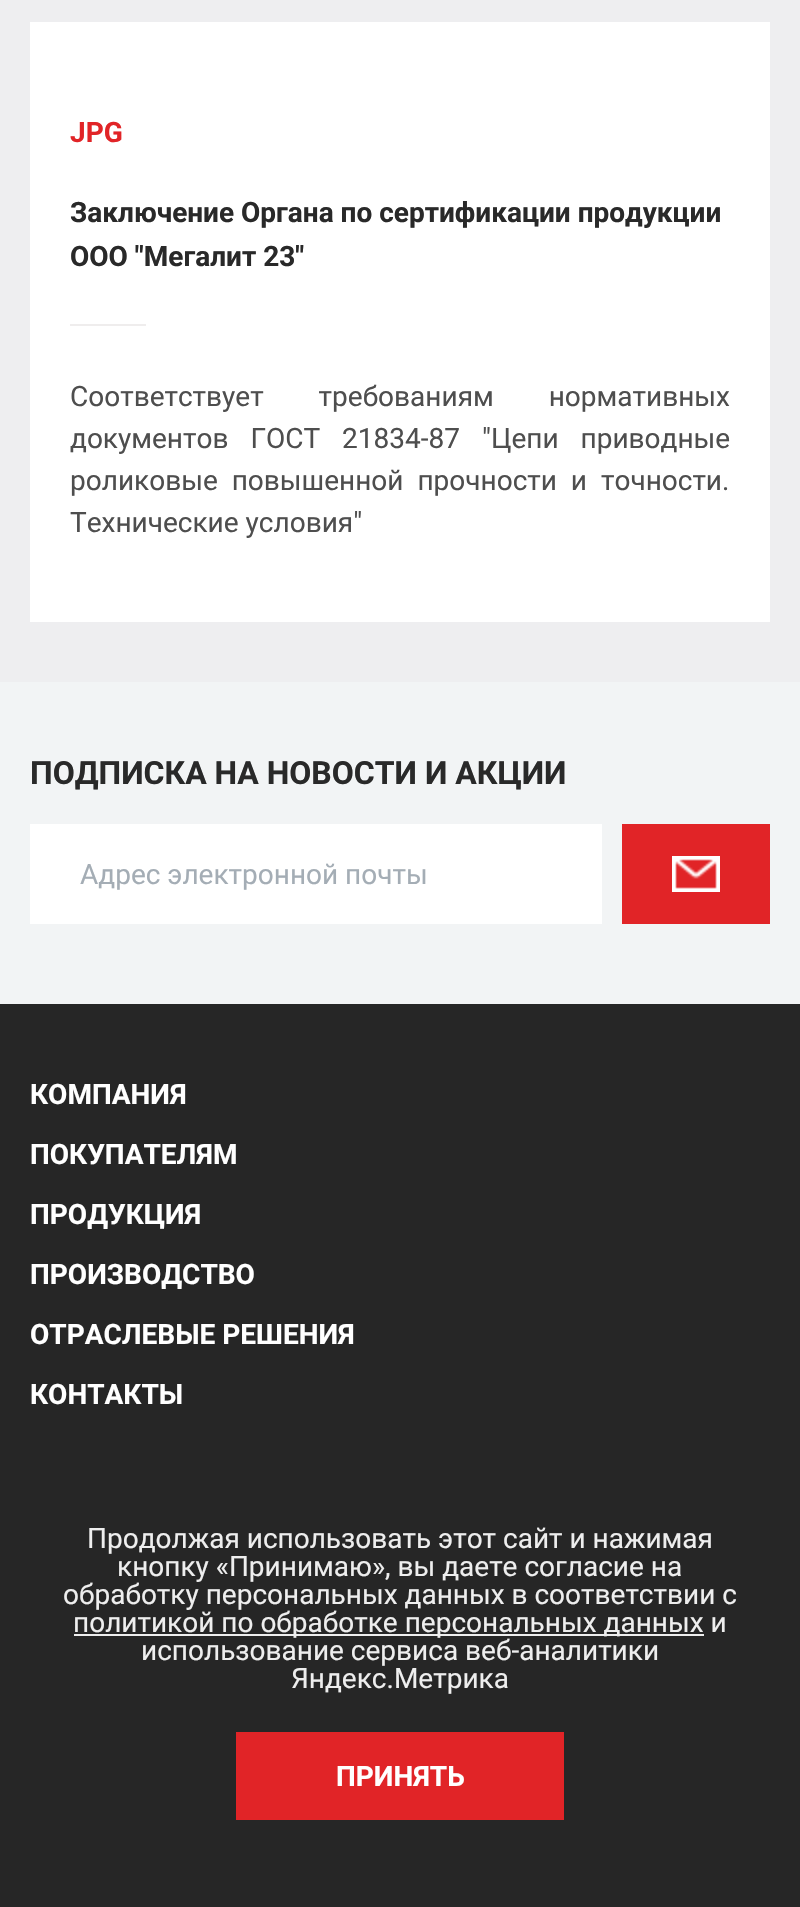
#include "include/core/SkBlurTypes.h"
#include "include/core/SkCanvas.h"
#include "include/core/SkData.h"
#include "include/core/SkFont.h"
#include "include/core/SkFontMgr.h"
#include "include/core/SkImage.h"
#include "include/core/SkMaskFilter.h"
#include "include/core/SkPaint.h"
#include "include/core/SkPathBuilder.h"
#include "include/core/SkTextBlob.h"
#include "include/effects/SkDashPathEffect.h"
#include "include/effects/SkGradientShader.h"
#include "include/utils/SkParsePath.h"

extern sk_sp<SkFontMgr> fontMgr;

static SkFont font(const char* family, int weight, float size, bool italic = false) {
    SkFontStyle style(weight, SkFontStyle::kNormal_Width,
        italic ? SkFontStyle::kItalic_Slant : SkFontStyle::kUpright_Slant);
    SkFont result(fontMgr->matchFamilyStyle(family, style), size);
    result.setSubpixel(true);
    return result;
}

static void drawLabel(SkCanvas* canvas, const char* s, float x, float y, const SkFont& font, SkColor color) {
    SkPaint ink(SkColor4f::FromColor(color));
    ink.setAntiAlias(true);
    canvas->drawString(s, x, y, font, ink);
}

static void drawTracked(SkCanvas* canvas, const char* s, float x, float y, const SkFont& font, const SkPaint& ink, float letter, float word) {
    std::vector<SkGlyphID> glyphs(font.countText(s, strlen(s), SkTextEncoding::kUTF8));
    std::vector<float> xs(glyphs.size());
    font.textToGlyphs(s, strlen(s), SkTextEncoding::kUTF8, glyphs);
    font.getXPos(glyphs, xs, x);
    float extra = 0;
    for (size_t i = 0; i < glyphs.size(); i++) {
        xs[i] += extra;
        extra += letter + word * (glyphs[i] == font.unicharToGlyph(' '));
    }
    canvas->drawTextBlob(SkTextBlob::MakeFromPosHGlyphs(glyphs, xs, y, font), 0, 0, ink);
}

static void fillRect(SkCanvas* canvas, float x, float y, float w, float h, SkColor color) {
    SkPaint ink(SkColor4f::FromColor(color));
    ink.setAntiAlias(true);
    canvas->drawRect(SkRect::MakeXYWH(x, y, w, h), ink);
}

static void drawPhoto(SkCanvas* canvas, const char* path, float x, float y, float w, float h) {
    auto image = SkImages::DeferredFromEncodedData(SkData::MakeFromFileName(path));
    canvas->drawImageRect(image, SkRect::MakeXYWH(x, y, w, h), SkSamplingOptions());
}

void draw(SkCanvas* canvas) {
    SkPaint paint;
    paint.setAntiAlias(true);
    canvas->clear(0xFFEEEEF0);
    fillRect(canvas, 30, 22, 740, 600, 0xFFFFFFFF);
    SkFont font1 = font("Roboto", 700, 28);
    drawLabel(canvas, "JPG", 70, 142, font1, 0xFFE12427);
    drawLabel(canvas, "Заключение Органа по сертификации продукции", 70, 222, font1, 0xFF292929);
    drawLabel(canvas, "ООО \"Мегалит 23\"", 70, 266, font1, 0xFF292929);
    fillRect(canvas, 70, 324, 76, 2, 0xFFEFEDED);
    SkFont font2 = font("Roboto", 400, 28);
    paint.setColor(0xFF4E4E4E);
    drawTracked(canvas, "Соответствует требованиям нормативных", 70, 406, font2, paint, 0, 48);
    drawTracked(canvas, "документов ГОСТ 21834-87 \"Цепи приводные", 70, 448, font2, paint, 0, 15);
    drawTracked(canvas, "роликовые повышенной прочности и точности.", 70, 490, font2, paint, 0, 7);
    drawLabel(canvas, "Технические условия\"", 70, 532, font2, 0xFF4E4E4E);
    fillRect(canvas, 0, 1004, 800, 903, 0xFF262626);
    fillRect(canvas, 0, 682, 800, 322, 0xFFF2F4F5);
    SkFont font3 = font("Roboto", 700, 32);
    drawLabel(canvas, "ПОДПИСКА НА НОВОСТИ И АКЦИИ", 30, 784, font3, 0xFF292929);
    fillRect(canvas, 30, 824, 572, 100, 0xFFFFFFFF);
    drawLabel(canvas, "Адрес электронной почты", 80, 884, font2, 0xFFA4ADB5);
    fillRect(canvas, 622, 824, 148, 100, 0xFFE12427);
    drawPhoto(canvas, "assets/img1.png", 672, 856, 48, 36);
    drawLabel(canvas, "КОМПАНИЯ", 30, 1104, font1, 0xFFFFFFFF);
    drawLabel(canvas, "ПОКУПАТЕЛЯМ", 30, 1164, font1, 0xFFFFFFFF);
    drawLabel(canvas, "ПРОДУКЦИЯ", 30, 1224, font1, 0xFFFFFFFF);
    drawLabel(canvas, "ПРОИЗВОДСТВО", 30, 1284, font1, 0xFFFFFFFF);
    drawLabel(canvas, "ОТРАСЛЕВЫЕ РЕШЕНИЯ", 30, 1344, font1, 0xFFFFFFFF);
    drawLabel(canvas, "КОНТАКТЫ", 30, 1404, font1, 0xFFFFFFFF);
    drawLabel(canvas, "Продолжая использовать этот сайт и нажимая", 87, 1548, font2, 0xFFEEEEEE);
    drawLabel(canvas, "кнопку «Принимаю», вы даете согласие на", 117, 1576, font2, 0xFFEEEEEE);
    drawLabel(canvas, "обработку персональных данных в соответствии с", 63, 1604, font2, 0xFFEEEEEE);
    fillRect(canvas, 74, 1634, 630, 2, 0xFFEEEEEE);
    drawLabel(canvas, "политикой по обработке персональных данных и", 73, 1632, font2, 0xFFEEEEEE);
    drawLabel(canvas, "использование сервиса веб-аналитики", 141, 1660, font2, 0xFFEEEEEE);
    drawLabel(canvas, "Яндекс.Метрика", 291, 1688, font2, 0xFFEEEEEE);
    fillRect(canvas, 236, 1732, 328, 88, 0xFFE12427);
    drawLabel(canvas, "ПРИНЯТЬ", 336, 1786, font1, 0xFFFFFFFF);
}
